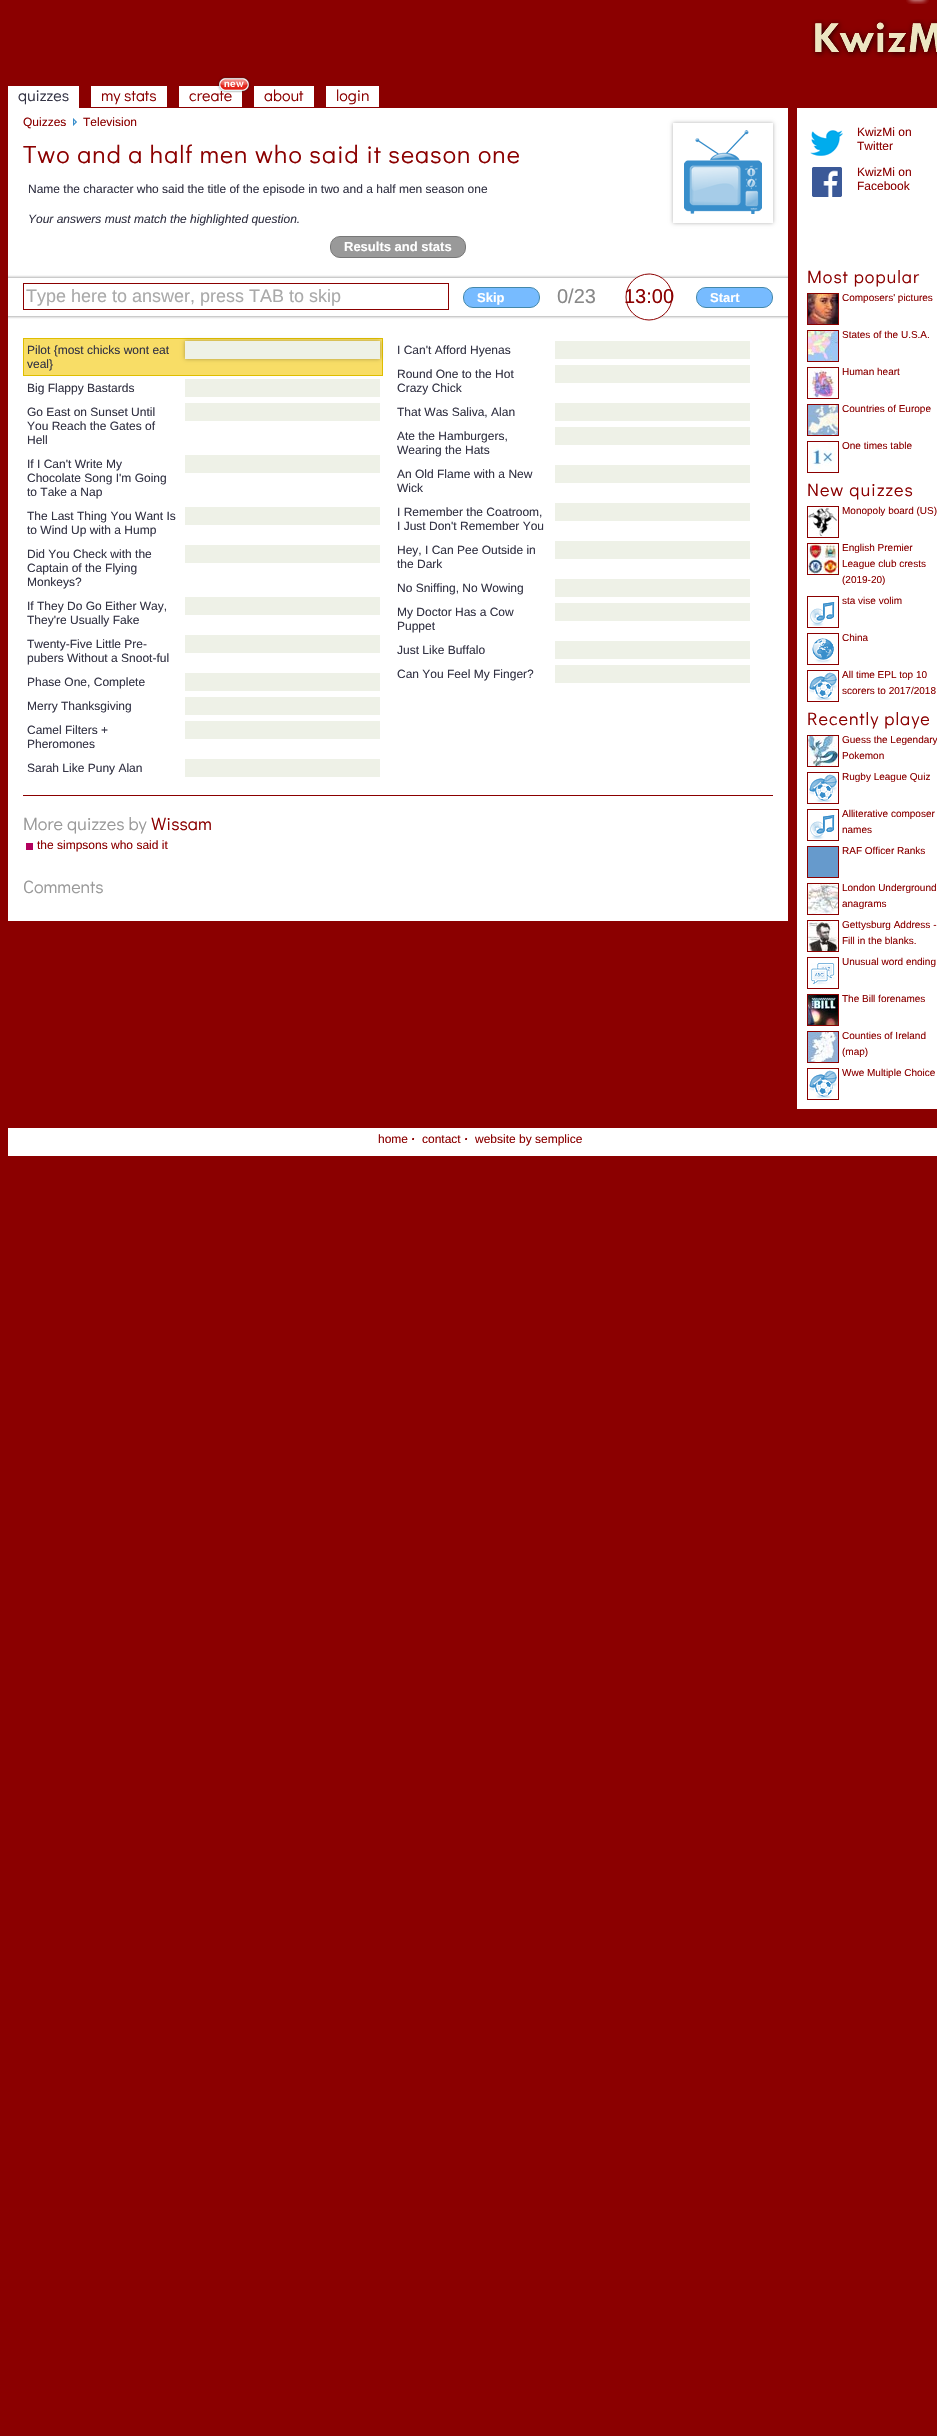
#include "include/core/SkBlurTypes.h"
#include "include/core/SkCanvas.h"
#include "include/core/SkData.h"
#include "include/core/SkFont.h"
#include "include/core/SkFontMgr.h"
#include "include/core/SkImage.h"
#include "include/core/SkMaskFilter.h"
#include "include/core/SkPaint.h"
#include "include/core/SkPathBuilder.h"
#include "include/core/SkTextBlob.h"
#include "include/effects/SkDashPathEffect.h"
#include "include/effects/SkGradientShader.h"
#include "include/utils/SkParsePath.h"

extern sk_sp<SkFontMgr> fontMgr;

static SkFont font(const char* family, int weight, float size, bool italic = false) {
    SkFontStyle style(weight, SkFontStyle::kNormal_Width,
        italic ? SkFontStyle::kItalic_Slant : SkFontStyle::kUpright_Slant);
    SkFont result(fontMgr->matchFamilyStyle(family, style), size);
    result.setSubpixel(true);
    return result;
}

static void drawLabel(SkCanvas* canvas, const char* s, float x, float y, const SkFont& font, SkColor color) {
    SkPaint ink(SkColor4f::FromColor(color));
    ink.setAntiAlias(true);
    canvas->drawString(s, x, y, font, ink);
}

static void drawTracked(SkCanvas* canvas, const char* s, float x, float y, const SkFont& font, const SkPaint& ink, float letter, float word) {
    std::vector<SkGlyphID> glyphs(font.countText(s, strlen(s), SkTextEncoding::kUTF8));
    std::vector<float> xs(glyphs.size());
    font.textToGlyphs(s, strlen(s), SkTextEncoding::kUTF8, glyphs);
    font.getXPos(glyphs, xs, x);
    float extra = 0;
    for (size_t i = 0; i < glyphs.size(); i++) {
        xs[i] += extra;
        extra += letter + word * (glyphs[i] == font.unicharToGlyph(' '));
    }
    canvas->drawTextBlob(SkTextBlob::MakeFromPosHGlyphs(glyphs, xs, y, font), 0, 0, ink);
}

static void fillRect(SkCanvas* canvas, float x, float y, float w, float h, SkColor color) {
    SkPaint ink(SkColor4f::FromColor(color));
    ink.setAntiAlias(true);
    canvas->drawRect(SkRect::MakeXYWH(x, y, w, h), ink);
}

static void drawPhoto(SkCanvas* canvas, const char* path, float x, float y, float w, float h) {
    auto image = SkImages::DeferredFromEncodedData(SkData::MakeFromFileName(path));
    canvas->drawImageRect(image, SkRect::MakeXYWH(x, y, w, h), SkSamplingOptions());
}

static SkPath parsePath(const char* data, bool evenOdd = false) {
    SkPath result = *SkParsePath::FromSVGString(data);
    if (evenOdd) result.setFillType(SkPathFillType::kEvenOdd);
    return result;
}

void draw(SkCanvas* canvas) {
    SkPaint paint;
    paint.setAntiAlias(true);
    canvas->clear(0xFF8B0000);
    drawPhoto(canvas, "assets/img1.png", 811, 19, 126, 39);
    fillRect(canvas, 8, 86, 71, 22, 0xFFFFFFFF);
    SkFont font1 = font("Didact Gothic", 400, 16);
    drawLabel(canvas, "quizzes", 18, 101, font1, 0xFF333344);
    fillRect(canvas, 91, 86, 76, 21, 0xFFFFFFFF);
    drawLabel(canvas, "my stats", 101, 101, font1, 0xFF8B0000);
    fillRect(canvas, 179, 86, 63, 21, 0xFFFFFFFF);
    drawLabel(canvas, "create", 189, 101, font1, 0xFF8B0000);
    drawPhoto(canvas, "assets/img2.png", 217, 76, 34, 17);
    fillRect(canvas, 254, 86, 60, 21, 0xFFFFFFFF);
    drawLabel(canvas, "about", 264, 101, font1, 0xFF8B0000);
    fillRect(canvas, 326, 86, 53, 21, 0xFFFFFFFF);
    drawLabel(canvas, "login", 336, 101, font1, 0xFF8B0000);
    fillRect(canvas, 8, 108, 780, 813, 0xFFFFFFFF);
    SkFont font2 = font("Liberation Sans", 400, 12);
    drawLabel(canvas, "Quizzes", 23, 126, font2, 0xFF8B0000);
    drawPhoto(canvas, "assets/img3.png", 73, 118, 4, 8);
    drawLabel(canvas, "Television", 83, 126, font2, 0xFF8B0000);
    canvas->save();
    canvas->clipPath(parsePath("M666 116H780V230H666ZM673 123H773V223H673Z", true), true);
    paint.setColor(0x4D000000);
    paint.setMaskFilter(SkMaskFilter::MakeBlur(kNormal_SkBlurStyle, 2));
    canvas->drawRect(SkRect::MakeXYWH(673, 123, 100, 100), paint);
    paint.setMaskFilter(nullptr);
    canvas->restore();
    drawPhoto(canvas, "assets/img4.png", 684, 130, 78, 84);
    SkFont font3 = font("Didact Gothic", 400, 25);
    paint.setColor(0xFF8B0000);
    drawTracked(canvas, "Two and a half men who said it season one", 23, 163, font3, paint, 1, 0);
    drawLabel(canvas, "Name the character who said the title of the episode in two and a half men season one", 28, 193, font2, 0xFF333344);
    SkFont font4 = font("Liberation Sans", 400, 12, true);
    drawLabel(canvas, "Your answers must match the highlighted question.", 28, 223, font4, 0xFF333344);
    paint.setColor(0xFF999999);
    canvas->drawRoundRect(SkRect::MakeXYWH(330.5f, 236.5f, 135, 21), 9.5f, 9.5f, paint);
    paint.setStroke(true);
    paint.setStrokeWidth(1);
    paint.setColor(0xFF777777);
    canvas->drawRoundRect(SkRect::MakeXYWH(330.5f, 236.5f, 135, 21), 9.5f, 9.5f, paint);
    SkFont font5 = font("Liberation Sans", 700, 13);
    drawLabel(canvas, "Results and stats", 344, 251, font5, 0xFFFFFFFF);
    drawPhoto(canvas, "assets/img5.png", 8, 275, 780, 44);
    paint.setColor(0xFF8B0000);
    canvas->drawRect(SkRect::MakeXYWH(23.5f, 283.5f, 425, 26), paint);
    SkFont font6 = font("Liberation Sans", 400, 18);
    drawLabel(canvas, "Type here to answer, press TAB to skip", 26, 302, font6, 0xFFAAAAAA);
    SkFont font7 = font("Liberation Sans", 400, 20);
    drawLabel(canvas, "0/23", 557, 303, font7, 0xFF888888);
    drawPhoto(canvas, "assets/img6.png", 625, 273, 48, 48);
    paint.setStroke(false);
    paint.setColor(0xFF77BBFF);
    canvas->drawRoundRect(SkRect::MakeXYWH(463.5f, 287.5f, 76, 20), 9.5f, 9.5f, paint);
    paint.setStroke(true);
    paint.setColor(0xFF4488AA);
    canvas->drawRoundRect(SkRect::MakeXYWH(463.5f, 287.5f, 76, 20), 9.5f, 9.5f, paint);
    drawLabel(canvas, "Skip", 477, 302, font5, 0xFFFFFFFF);
    drawLabel(canvas, "13:00", 624, 303, font7, 0xFF8B0000);
    paint.setStroke(false);
    paint.setColor(0xFF77BBFF);
    canvas->drawRoundRect(SkRect::MakeXYWH(696.5f, 287.5f, 76, 20), 9.5f, 9.5f, paint);
    paint.setStroke(true);
    paint.setColor(0xFF4488AA);
    canvas->drawRoundRect(SkRect::MakeXYWH(696.5f, 287.5f, 76, 20), 9.5f, 9.5f, paint);
    drawLabel(canvas, "Start", 710, 302, font5, 0xFFFFFFFF);
    paint.setStroke(false);
    paint.setColor(0xFFF8DD66);
    canvas->drawRect(SkRect::MakeXYWH(23.5f, 338.5f, 359, 37), paint);
    paint.setStroke(true);
    paint.setColor(0xFFDFBE00);
    canvas->drawRect(SkRect::MakeXYWH(23.5f, 338.5f, 359, 37), paint);
    drawLabel(canvas, "Pilot {most chicks wont eat", 27, 354, font2, 0xFF333344);
    drawLabel(canvas, "veal}", 27, 368, font2, 0xFF333344);
    paint.setStroke(false);
    paint.setColor(0x4D000000);
    paint.setMaskFilter(SkMaskFilter::MakeBlur(kNormal_SkBlurStyle, 2));
    canvas->drawRect(SkRect::MakeXYWH(185, 341, 195, 18), paint);
    paint.setMaskFilter(nullptr);
    fillRect(canvas, 185, 341, 195, 18, 0xFFEEF1E7);
    drawLabel(canvas, "Big Flappy Bastards", 27, 392, font2, 0xFF333344);
    fillRect(canvas, 185, 379, 195, 18, 0xFFEEF1E7);
    drawLabel(canvas, "Go East on Sunset Until", 27, 416, font2, 0xFF333344);
    drawLabel(canvas, "You Reach the Gates of", 27, 430, font2, 0xFF333344);
    drawLabel(canvas, "Hell", 27, 444, font2, 0xFF333344);
    fillRect(canvas, 185, 403, 195, 18, 0xFFEEF1E7);
    drawLabel(canvas, "If I Can't Write My", 27, 468, font2, 0xFF333344);
    drawLabel(canvas, "Chocolate Song I'm Going", 27, 482, font2, 0xFF333344);
    drawLabel(canvas, "to Take a Nap", 27, 496, font2, 0xFF333344);
    fillRect(canvas, 185, 455, 195, 18, 0xFFEEF1E7);
    drawLabel(canvas, "The Last Thing You Want Is", 27, 520, font2, 0xFF333344);
    drawLabel(canvas, "to Wind Up with a Hump", 27, 534, font2, 0xFF333344);
    fillRect(canvas, 185, 507, 195, 18, 0xFFEEF1E7);
    drawLabel(canvas, "Did You Check with the", 27, 558, font2, 0xFF333344);
    drawLabel(canvas, "Captain of the Flying", 27, 572, font2, 0xFF333344);
    drawLabel(canvas, "Monkeys?", 27, 586, font2, 0xFF333344);
    fillRect(canvas, 185, 545, 195, 18, 0xFFEEF1E7);
    drawLabel(canvas, "If They Do Go Either Way,", 27, 610, font2, 0xFF333344);
    drawLabel(canvas, "They're Usually Fake", 27, 624, font2, 0xFF333344);
    fillRect(canvas, 185, 597, 195, 18, 0xFFEEF1E7);
    drawLabel(canvas, "Twenty-Five Little Pre-", 27, 648, font2, 0xFF333344);
    drawLabel(canvas, "pubers Without a Snoot-ful", 27, 662, font2, 0xFF333344);
    fillRect(canvas, 185, 635, 195, 18, 0xFFEEF1E7);
    drawLabel(canvas, "Phase One, Complete", 27, 686, font2, 0xFF333344);
    fillRect(canvas, 185, 673, 195, 18, 0xFFEEF1E7);
    drawLabel(canvas, "Merry Thanksgiving", 27, 710, font2, 0xFF333344);
    fillRect(canvas, 185, 697, 195, 18, 0xFFEEF1E7);
    drawLabel(canvas, "Camel Filters +", 27, 734, font2, 0xFF333344);
    drawLabel(canvas, "Pheromones", 27, 748, font2, 0xFF333344);
    fillRect(canvas, 185, 721, 195, 18, 0xFFEEF1E7);
    drawLabel(canvas, "Sarah Like Puny Alan", 27, 772, font2, 0xFF333344);
    fillRect(canvas, 185, 759, 195, 18, 0xFFEEF1E7);
    drawLabel(canvas, "I Can't Afford Hyenas", 397, 354, font2, 0xFF333344);
    fillRect(canvas, 555, 341, 195, 18, 0xFFEEF1E7);
    drawLabel(canvas, "Round One to the Hot", 397, 378, font2, 0xFF333344);
    drawLabel(canvas, "Crazy Chick", 397, 392, font2, 0xFF333344);
    fillRect(canvas, 555, 365, 195, 18, 0xFFEEF1E7);
    drawLabel(canvas, "That Was Saliva, Alan", 397, 416, font2, 0xFF333344);
    fillRect(canvas, 555, 403, 195, 18, 0xFFEEF1E7);
    drawLabel(canvas, "Ate the Hamburgers,", 397, 440, font2, 0xFF333344);
    drawLabel(canvas, "Wearing the Hats", 397, 454, font2, 0xFF333344);
    fillRect(canvas, 555, 427, 195, 18, 0xFFEEF1E7);
    drawLabel(canvas, "An Old Flame with a New", 397, 478, font2, 0xFF333344);
    drawLabel(canvas, "Wick", 397, 492, font2, 0xFF333344);
    fillRect(canvas, 555, 465, 195, 18, 0xFFEEF1E7);
    drawLabel(canvas, "I Remember the Coatroom,", 397, 516, font2, 0xFF333344);
    drawLabel(canvas, "I Just Don't Remember You", 397, 530, font2, 0xFF333344);
    fillRect(canvas, 555, 503, 195, 18, 0xFFEEF1E7);
    drawLabel(canvas, "Hey, I Can Pee Outside in", 397, 554, font2, 0xFF333344);
    drawLabel(canvas, "the Dark", 397, 568, font2, 0xFF333344);
    fillRect(canvas, 555, 541, 195, 18, 0xFFEEF1E7);
    drawLabel(canvas, "No Sniffing, No Wowing", 397, 592, font2, 0xFF333344);
    fillRect(canvas, 555, 579, 195, 18, 0xFFEEF1E7);
    drawLabel(canvas, "My Doctor Has a Cow", 397, 616, font2, 0xFF333344);
    drawLabel(canvas, "Puppet", 397, 630, font2, 0xFF333344);
    fillRect(canvas, 555, 603, 195, 18, 0xFFEEF1E7);
    drawLabel(canvas, "Just Like Buffalo", 397, 654, font2, 0xFF333344);
    fillRect(canvas, 555, 641, 195, 18, 0xFFEEF1E7);
    drawLabel(canvas, "Can You Feel My Finger?", 397, 678, font2, 0xFF333344);
    fillRect(canvas, 555, 665, 195, 18, 0xFFEEF1E7);
    fillRect(canvas, 23, 795, 750, 1, 0xFF8B0000);
    SkFont font8 = font("Didact Gothic", 400, 18);
    drawLabel(canvas, "More quizzes by", 23, 830, font8, 0xFF999999);
    drawLabel(canvas, "Wissam", 151, 830, font8, 0xFF8B0000);
    fillRect(canvas, 26, 843, 7, 7, 0xFFB3005E);
    drawLabel(canvas, "the simpsons who said it", 37, 849, font2, 0xFF8B0000);
    drawLabel(canvas, "Comments", 23, 893, font8, 0xFF999999);
    fillRect(canvas, 797, 108, 140, 1001, 0xFFFFFFFF);
    drawPhoto(canvas, "assets/img7.png", 906, 0, 23, 4);
    drawPhoto(canvas, "assets/img8.png", 810, 130, 33, 26);
    drawLabel(canvas, "KwizMi on", 857, 136, font2, 0xFF8B0000);
    drawLabel(canvas, "Twitter", 857, 150, font2, 0xFF8B0000);
    drawPhoto(canvas, "assets/img9.png", 812, 167, 30, 30);
    drawLabel(canvas, "KwizMi on", 857, 176, font2, 0xFF8B0000);
    drawLabel(canvas, "Facebook", 857, 190, font2, 0xFF8B0000);
    paint.setColor(0xFF8B0000);
    drawTracked(canvas, "Most popular", 807, 283, font8, paint, 1, 0);
    paint.setStroke(true);
    canvas->drawRect(SkRect::MakeXYWH(807.5f, 293.5f, 31, 31), paint);
    drawPhoto(canvas, "assets/img10.png", 808, 294, 30, 30);
    SkFont font9 = font("Liberation Sans", 400, 10);
    drawLabel(canvas, "Composers' pictures", 842, 301, font9, 0xFF8B0000);
    canvas->drawRect(SkRect::MakeXYWH(807.5f, 330.5f, 31, 31), paint);
    drawPhoto(canvas, "assets/img11.png", 808, 331, 30, 30);
    drawLabel(canvas, "States of the U.S.A.", 842, 338, font9, 0xFF8B0000);
    canvas->drawRect(SkRect::MakeXYWH(807.5f, 367.5f, 31, 31), paint);
    drawPhoto(canvas, "assets/img12.png", 808, 368, 30, 30);
    drawLabel(canvas, "Human heart", 842, 375, font9, 0xFF8B0000);
    canvas->drawRect(SkRect::MakeXYWH(807.5f, 404.5f, 31, 31), paint);
    drawPhoto(canvas, "assets/img13.png", 808, 405, 30, 30);
    drawLabel(canvas, "Countries of Europe", 842, 412, font9, 0xFF8B0000);
    canvas->drawRect(SkRect::MakeXYWH(807.5f, 441.5f, 31, 31), paint);
    drawPhoto(canvas, "assets/img14.png", 808, 442, 30, 30);
    drawLabel(canvas, "One times table", 842, 449, font9, 0xFF8B0000);
    paint.setStroke(false);
    drawTracked(canvas, "New quizzes", 807, 496, font8, paint, 1, 0);
    paint.setStroke(true);
    canvas->drawRect(SkRect::MakeXYWH(807.5f, 506.5f, 31, 31), paint);
    drawPhoto(canvas, "assets/img15.png", 808, 507, 30, 30);
    drawLabel(canvas, "Monopoly board (US)", 842, 514, font9, 0xFF8B0000);
    canvas->drawRect(SkRect::MakeXYWH(807.5f, 543.5f, 31, 31), paint);
    drawPhoto(canvas, "assets/img16.png", 808, 544, 30, 30);
    drawLabel(canvas, "English Premier", 842, 551, font9, 0xFF8B0000);
    drawLabel(canvas, "League club crests", 842, 567, font9, 0xFF8B0000);
    drawLabel(canvas, "(2019-20)", 842, 583, font9, 0xFF8B0000);
    canvas->drawRect(SkRect::MakeXYWH(807.5f, 596.5f, 31, 31), paint);
    drawPhoto(canvas, "assets/img17.png", 810, 602, 25, 24);
    drawLabel(canvas, "sta vise volim", 842, 604, font9, 0xFF8B0000);
    canvas->drawRect(SkRect::MakeXYWH(807.5f, 633.5f, 31, 31), paint);
    drawPhoto(canvas, "assets/img18.png", 812, 638, 22, 25);
    drawLabel(canvas, "China", 842, 641, font9, 0xFF8B0000);
    canvas->drawRect(SkRect::MakeXYWH(807.5f, 670.5f, 31, 31), paint);
    drawPhoto(canvas, "assets/img19.png", 809, 672, 28, 28);
    drawLabel(canvas, "All time EPL top 10", 842, 678, font9, 0xFF8B0000);
    drawLabel(canvas, "scorers to 2017/2018", 842, 694, font9, 0xFF8B0000);
    paint.setStroke(false);
    drawTracked(canvas, "Recently playe", 807, 725, font8, paint, 1, 0);
    paint.setStroke(true);
    canvas->drawRect(SkRect::MakeXYWH(807.5f, 735.5f, 31, 31), paint);
    drawPhoto(canvas, "assets/img20.png", 808, 736, 30, 30);
    drawLabel(canvas, "Guess the Legendary", 842, 743, font9, 0xFF8B0000);
    drawLabel(canvas, "Pokemon", 842, 759, font9, 0xFF8B0000);
    canvas->drawRect(SkRect::MakeXYWH(807.5f, 772.5f, 31, 31), paint);
    drawPhoto(canvas, "assets/img19.png", 809, 774, 28, 28);
    drawLabel(canvas, "Rugby League Quiz", 842, 780, font9, 0xFF8B0000);
    canvas->drawRect(SkRect::MakeXYWH(807.5f, 809.5f, 31, 31), paint);
    drawPhoto(canvas, "assets/img17.png", 810, 815, 25, 24);
    drawLabel(canvas, "Alliterative composer", 842, 817, font9, 0xFF8B0000);
    drawLabel(canvas, "names", 842, 833, font9, 0xFF8B0000);
    canvas->drawRect(SkRect::MakeXYWH(807.5f, 846.5f, 31, 31), paint);
    fillRect(canvas, 808, 847, 30, 30, 0xFF669ACC);
    drawLabel(canvas, "RAF Officer Ranks", 842, 854, font9, 0xFF8B0000);
    canvas->drawRect(SkRect::MakeXYWH(807.5f, 883.5f, 31, 31), paint);
    drawPhoto(canvas, "assets/img21.png", 808, 884, 30, 30);
    drawLabel(canvas, "London Underground", 842, 891, font9, 0xFF8B0000);
    drawLabel(canvas, "anagrams", 842, 907, font9, 0xFF8B0000);
    canvas->drawRect(SkRect::MakeXYWH(807.5f, 920.5f, 31, 31), paint);
    drawPhoto(canvas, "assets/img22.png", 808, 921, 30, 30);
    drawLabel(canvas, "Gettysburg Address -", 842, 928, font9, 0xFF8B0000);
    drawLabel(canvas, "Fill in the blanks.", 842, 944, font9, 0xFF8B0000);
    canvas->drawRect(SkRect::MakeXYWH(807.5f, 957.5f, 31, 31), paint);
    drawPhoto(canvas, "assets/img23.png", 811, 963, 24, 22);
    drawLabel(canvas, "Unusual word ending", 842, 965, font9, 0xFF8B0000);
    canvas->drawRect(SkRect::MakeXYWH(807.5f, 994.5f, 31, 31), paint);
    drawPhoto(canvas, "assets/img24.png", 808, 995, 30, 30);
    drawLabel(canvas, "The Bill forenames", 842, 1002, font9, 0xFF8B0000);
    canvas->drawRect(SkRect::MakeXYWH(807.5f, 1031.5f, 31, 31), paint);
    drawPhoto(canvas, "assets/img25.png", 808, 1032, 30, 30);
    drawLabel(canvas, "Counties of Ireland", 842, 1039, font9, 0xFF8B0000);
    drawLabel(canvas, "(map)", 842, 1055, font9, 0xFF8B0000);
    canvas->drawRect(SkRect::MakeXYWH(807.5f, 1068.5f, 31, 31), paint);
    drawPhoto(canvas, "assets/img19.png", 809, 1070, 28, 28);
    drawLabel(canvas, "Wwe Multiple Choice", 842, 1076, font9, 0xFF8B0000);
    fillRect(canvas, 8, 1128, 929, 28, 0xFFFFFFFF);
    drawLabel(canvas, "home", 378, 1143, font2, 0xFF8B0000);
    SkFont font10 = font("Liberation Sans", 700, 12, true);
    drawLabel(canvas, "·", 411, 1143, font10, 0xFF8B0000);
    drawLabel(canvas, "contact", 422, 1143, font2, 0xFF8B0000);
    drawLabel(canvas, "·", 464, 1143, font10, 0xFF8B0000);
    drawLabel(canvas, "website by semplice", 475, 1143, font2, 0xFF8B0000);
}
